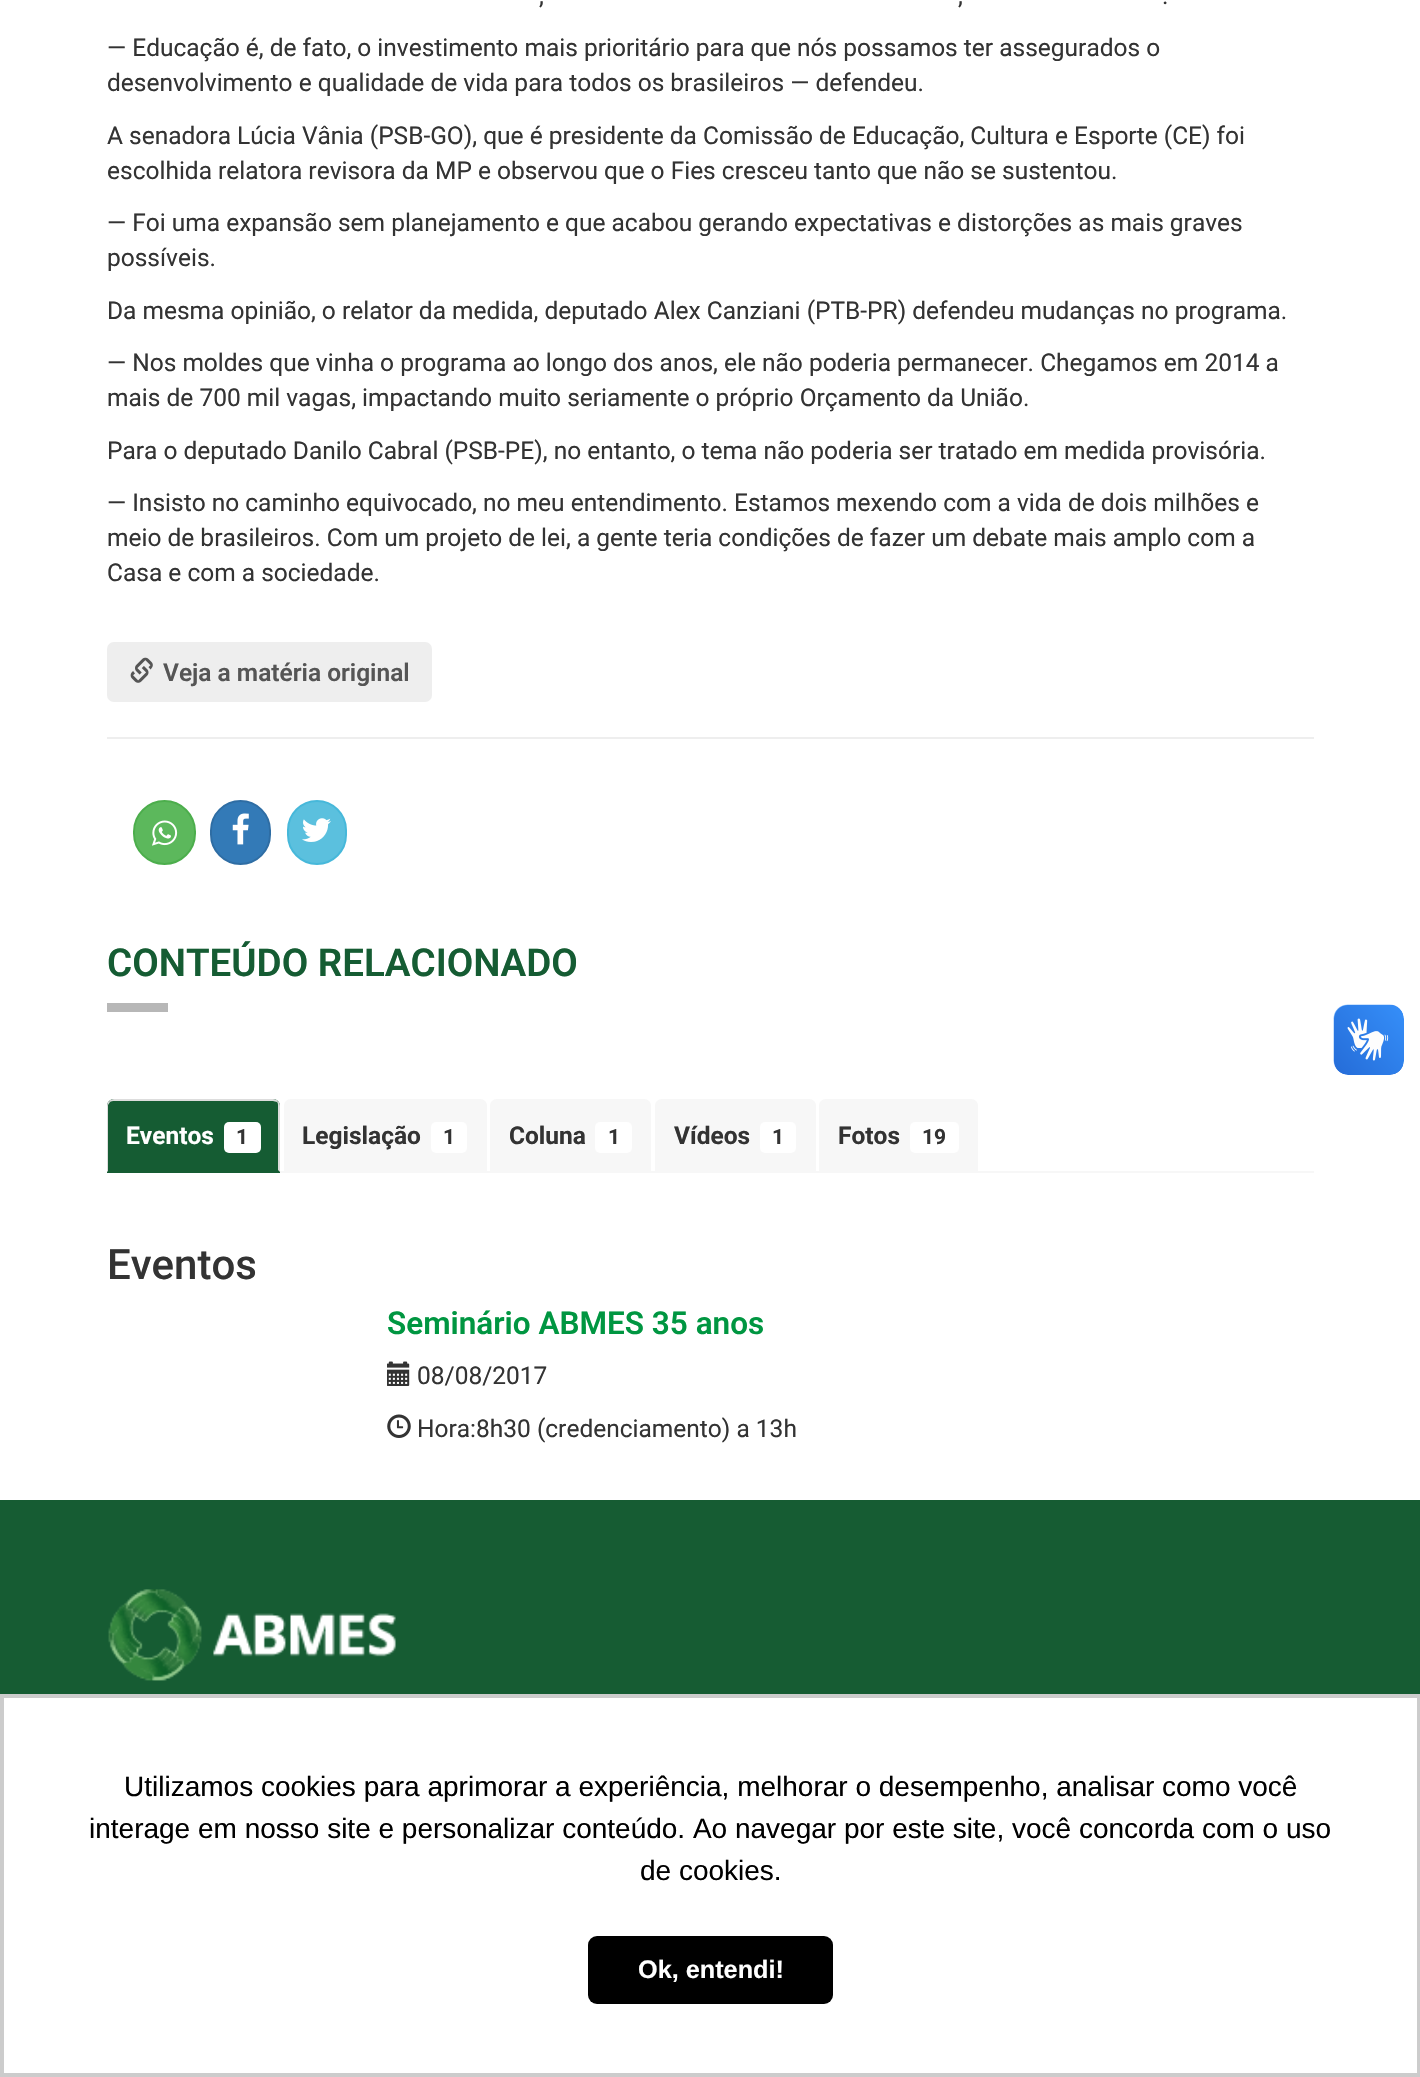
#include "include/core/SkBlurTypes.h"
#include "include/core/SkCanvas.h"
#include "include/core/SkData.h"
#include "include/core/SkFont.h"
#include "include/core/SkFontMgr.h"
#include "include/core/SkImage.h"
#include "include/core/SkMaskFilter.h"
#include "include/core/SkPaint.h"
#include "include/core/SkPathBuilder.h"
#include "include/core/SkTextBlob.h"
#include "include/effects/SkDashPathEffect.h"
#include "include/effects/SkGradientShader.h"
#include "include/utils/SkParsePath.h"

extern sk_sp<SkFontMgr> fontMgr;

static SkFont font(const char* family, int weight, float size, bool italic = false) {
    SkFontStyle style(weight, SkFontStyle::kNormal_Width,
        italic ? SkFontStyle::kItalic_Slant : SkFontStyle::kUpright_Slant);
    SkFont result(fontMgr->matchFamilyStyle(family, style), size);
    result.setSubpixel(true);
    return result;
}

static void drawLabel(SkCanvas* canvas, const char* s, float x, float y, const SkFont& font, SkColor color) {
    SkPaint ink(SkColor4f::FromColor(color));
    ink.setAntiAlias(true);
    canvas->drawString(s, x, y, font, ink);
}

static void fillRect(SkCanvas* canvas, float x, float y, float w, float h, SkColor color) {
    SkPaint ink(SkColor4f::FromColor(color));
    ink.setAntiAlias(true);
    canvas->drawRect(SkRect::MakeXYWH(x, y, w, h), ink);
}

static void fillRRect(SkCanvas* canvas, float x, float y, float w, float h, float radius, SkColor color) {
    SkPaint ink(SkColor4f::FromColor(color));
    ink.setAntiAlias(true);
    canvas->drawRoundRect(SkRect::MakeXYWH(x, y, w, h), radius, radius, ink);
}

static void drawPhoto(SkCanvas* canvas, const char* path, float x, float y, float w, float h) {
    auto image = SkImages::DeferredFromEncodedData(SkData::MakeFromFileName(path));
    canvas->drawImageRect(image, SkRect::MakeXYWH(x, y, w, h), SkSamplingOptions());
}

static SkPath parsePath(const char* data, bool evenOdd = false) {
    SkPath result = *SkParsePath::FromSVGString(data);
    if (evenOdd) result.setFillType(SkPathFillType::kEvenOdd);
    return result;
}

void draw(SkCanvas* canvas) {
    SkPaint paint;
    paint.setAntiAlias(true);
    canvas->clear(0xFFFFFFFF);
    SkFont font1 = font("Roboto", 400, 24.5f);
    drawLabel(canvas, ",", 539, 4, font1, 0xFF333333);
    drawLabel(canvas, ",", 958, 4, font1, 0xFF333333);
    drawLabel(canvas, ".", 1162, 4, font1, 0xFF333333);
    drawLabel(canvas, "— Educação é, de fato, o investimento mais prioritário para que nós possamos ter assegurados o", 107, 56, font1, 0xFF333333);
    drawLabel(canvas, "desenvolvimento e qualidade de vida para todos os brasileiros — defendeu.", 107, 91, font1, 0xFF333333);
    drawLabel(canvas, "A senadora Lúcia Vânia (PSB-GO), que é presidente da Comissão de Educação, Cultura e Esporte (CE) foi", 107, 144, font1, 0xFF333333);
    drawLabel(canvas, "escolhida relatora revisora da MP e observou que o Fies cresceu tanto que não se sustentou.", 107, 179, font1, 0xFF333333);
    drawLabel(canvas, "— Foi uma expansão sem planejamento e que acabou gerando expectativas e distorções as mais graves", 107, 231, font1, 0xFF333333);
    drawLabel(canvas, "possíveis.", 107, 266, font1, 0xFF333333);
    drawLabel(canvas, "Da mesma opinião, o relator da medida, deputado Alex Canziani (PTB-PR) defendeu mudanças no programa.", 107, 319, font1, 0xFF333333);
    drawLabel(canvas, "— Nos moldes que vinha o programa ao longo dos anos, ele não poderia permanecer. Chegamos em 2014 a", 107, 371, font1, 0xFF333333);
    drawLabel(canvas, "mais de 700 mil vagas, impactando muito seriamente o próprio Orçamento da União.", 107, 406, font1, 0xFF333333);
    drawLabel(canvas, "Para o deputado Danilo Cabral (PSB-PE), no entanto, o tema não poderia ser tratado em medida provisória.", 107, 459, font1, 0xFF333333);
    drawLabel(canvas, "— Insisto no caminho equivocado, no meu entendimento. Estamos mexendo com a vida de dois milhões e", 107, 511, font1, 0xFF333333);
    drawLabel(canvas, "meio de brasileiros. Com um projeto de lei, a gente teria condições de fazer um debate mais amplo com a", 107, 546, font1, 0xFF333333);
    drawLabel(canvas, "Casa e com a sociedade.", 107, 581, font1, 0xFF333333);
    fillRRect(canvas, 107, 642, 325, 60, 7, 0xFFEEEEEE);
    drawPhoto(canvas, "assets/img1.png", 130, 657, 23, 26);
    SkFont font2 = font("Roboto", 600, 24.5f);
    drawLabel(canvas, "Veja a matéria original", 163, 681, font2, 0xFF555555);
    fillRect(canvas, 107, 737, 1207, 2, 0xFFEEEEEE);
    paint.setColor(0xFF5CB85C);
    canvas->drawRoundRect(SkRect::MakeXYWH(134, 801, 61, 63), 30.5f, 30.5f, paint);
    paint.setStroke(true);
    paint.setStrokeWidth(2);
    paint.setColor(0xFF4CAE4C);
    canvas->drawRoundRect(SkRect::MakeXYWH(134, 801, 61, 63), 30.5f, 30.5f, paint);
    drawPhoto(canvas, "assets/img2.png", 152, 820, 26, 26);
    paint.setStroke(false);
    paint.setColor(0xFF337AB7);
    canvas->drawRoundRect(SkRect::MakeXYWH(211, 801, 59, 63), 29.5f, 29.5f, paint);
    paint.setStroke(true);
    paint.setColor(0xFF2E6DA4);
    canvas->drawRoundRect(SkRect::MakeXYWH(211, 801, 59, 63), 29.5f, 29.5f, paint);
    drawPhoto(canvas, "assets/img3.png", 232, 813, 17, 32);
    paint.setStroke(false);
    paint.setColor(0xFF5BC0DE);
    canvas->drawRoundRect(SkRect::MakeXYWH(288, 801, 58, 63), 29, 29, paint);
    paint.setStroke(true);
    paint.setColor(0xFF46B8DA);
    canvas->drawRoundRect(SkRect::MakeXYWH(288, 801, 58, 63), 29, 29, paint);
    drawPhoto(canvas, "assets/img4.png", 302, 818, 29, 24);
    SkFont font3 = font("Roboto", 600, 38.5f);
    drawLabel(canvas, "CONTEÚDO RELACIONADO", 107, 976, font3, 0xFF155C33);
    fillRect(canvas, 107, 1003, 61, 9, 0xFFB7B7B7);
    fillRect(canvas, 280, 1171, 1034, 2, 0xFFF7F7F7);
    paint.setStroke(false);
    paint.setColor(0xFF155C33);
    canvas->drawPath(parsePath("M114 1099H273C277 1099 280 1102 280 1106V1173H107V1106C107 1102 110 1099 114 1099Z"), paint);
    paint.setColor(0xFFDDDDDD);
    canvas->drawPath(parsePath("M114 1099C112 1099 110 1100 109 1101L110 1102C111 1101 113 1101 114 1101H273C274 1101 276 1102 277 1102L278 1101C277 1100 275 1099 273 1099Z"), paint);
    canvas->drawPath(parsePath("M280 1172V1106C280 1104 279 1102 278 1101L277 1102C278 1103 278 1104 278 1106V1170Z"), paint);
    canvas->drawPath(parsePath("M109 1101C108 1102 107 1104 107 1106V1172L108 1171V1105L110 1102Z"), paint);
    SkFont font4 = font("Roboto", 700, 24.5f);
    drawLabel(canvas, "Eventos", 126, 1144, font4, 0xFFFFFFFF);
    fillRRect(canvas, 224, 1122, 37, 31, 5, 0xFFFFFFFF);
    SkFont font5 = font("Roboto", 700, 21);
    drawLabel(canvas, "1", 236, 1144, font5, 0xFF333333);
    paint.setColor(0xFFF7F7F7);
    canvas->drawPath(parsePath("M291 1099H480C484 1099 487 1102 487 1106V1173H284V1106C284 1102 287 1099 291 1099Z"), paint);
    drawLabel(canvas, "Legislação", 302, 1144, font4, 0xFF333333);
    fillRRect(canvas, 431, 1122, 36, 31, 5, 0xFFFFFFFF);
    drawLabel(canvas, "1", 443, 1144, font5, 0xFF333333);
    canvas->drawPath(parsePath("M497 1099H644C648 1099 651 1102 651 1106V1173H490V1106C490 1102 493 1099 497 1099Z"), paint);
    drawLabel(canvas, "Coluna", 509, 1144, font4, 0xFF333333);
    fillRRect(canvas, 595, 1122, 37, 31, 5, 0xFFFFFFFF);
    drawLabel(canvas, "1", 608, 1144, font5, 0xFF333333);
    canvas->drawPath(parsePath("M662 1099H809C813 1099 816 1102 816 1106V1173H655V1106C655 1102 658 1099 662 1099Z"), paint);
    drawLabel(canvas, "Vídeos", 674, 1144, font4, 0xFF333333);
    fillRRect(canvas, 760, 1122, 36, 31, 5, 0xFFFFFFFF);
    drawLabel(canvas, "1", 772, 1144, font5, 0xFF333333);
    canvas->drawPath(parsePath("M826 1099H971C975 1099 978 1102 978 1106V1173H819V1106C819 1102 822 1099 826 1099Z"), paint);
    drawLabel(canvas, "Fotos", 838, 1144, font4, 0xFF333333);
    fillRRect(canvas, 910, 1122, 49, 31, 5, 0xFFFFFFFF);
    drawLabel(canvas, "19", 922, 1144, font5, 0xFF333333);
    SkFont font6 = font("Roboto", 500, 42);
    drawLabel(canvas, "Eventos", 107, 1279, font6, 0xFF333333);
    SkFont font7 = font("Roboto", 600, 31.5f);
    drawLabel(canvas, "Seminário ABMES 35 anos", 387, 1334, font7, 0xFF009641);
    drawPhoto(canvas, "assets/img5.png", 387, 1361, 23, 25);
    drawLabel(canvas, "08/08/2017", 417, 1384, font1, 0xFF333333);
    drawPhoto(canvas, "assets/img6.png", 387, 1414, 24, 24);
    drawLabel(canvas, "Hora:8h30 (credenciamento) a 13h", 417, 1437, font1, 0xFF333333);
    drawPhoto(canvas, "assets/img7.png", 1333, 1004, 71, 71);
    drawPhoto(canvas, "assets/img8.png", 1334, 1005, 70, 70);
    fillRect(canvas, 0, 1500, 1420, 194, 0xFF165C33);
    drawPhoto(canvas, "assets/img9.png", 108, 1589, 288, 92);
    paint.setStroke(true);
    paint.setStrokeWidth(4);
    paint.setColor(0xFFCCCCCC);
    canvas->drawRect(SkRect::MakeXYWH(2, 1696, 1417, 379), paint);
    SkFont font8 = font("Liberation Sans", 400, 28);
    drawLabel(canvas, "Utilizamos cookies para aprimorar a experiência, melhorar o desempenho, analisar como você", 124, 1796, font8, 0xFF000000);
    drawLabel(canvas, "interage em nosso site e personalizar conteúdo. Ao navegar por este site, você concorda com o uso", 89, 1838, font8, 0xFF000000);
    drawLabel(canvas, "de cookies.", 640, 1880, font8, 0xFF000000);
    fillRRect(canvas, 588, 1936, 245, 68, 9, 0xFF000000);
    SkFont font9 = font("Liberation Sans", 700, 25.25f);
    drawLabel(canvas, "Ok, entendi!", 638, 1978, font9, 0xFFFFFFFF);
}
